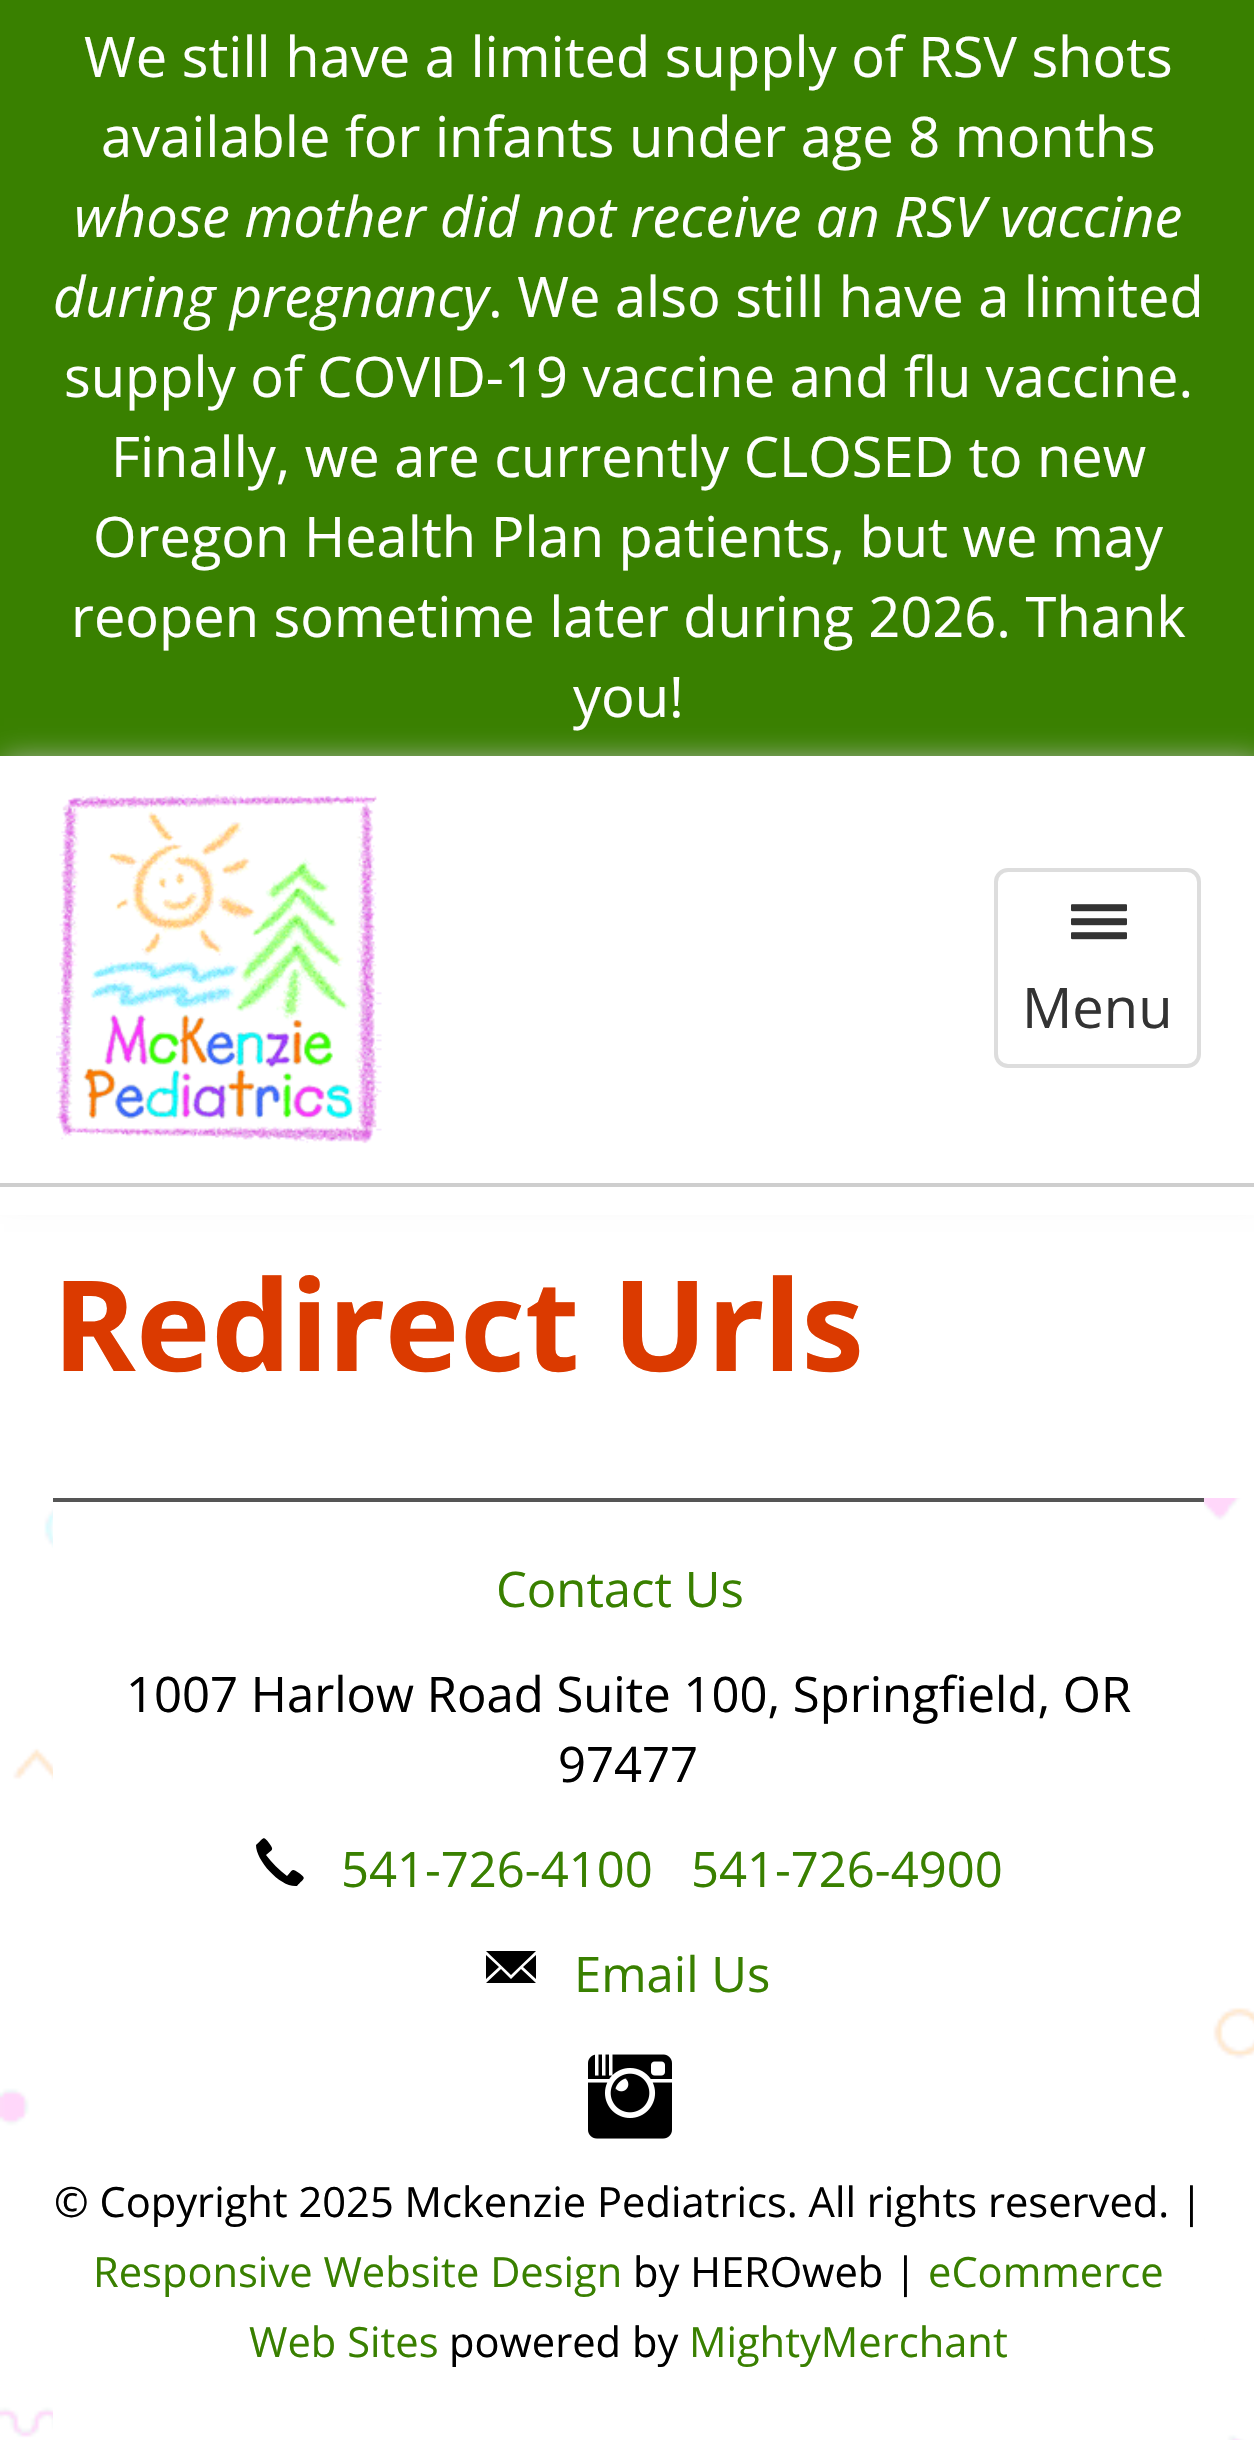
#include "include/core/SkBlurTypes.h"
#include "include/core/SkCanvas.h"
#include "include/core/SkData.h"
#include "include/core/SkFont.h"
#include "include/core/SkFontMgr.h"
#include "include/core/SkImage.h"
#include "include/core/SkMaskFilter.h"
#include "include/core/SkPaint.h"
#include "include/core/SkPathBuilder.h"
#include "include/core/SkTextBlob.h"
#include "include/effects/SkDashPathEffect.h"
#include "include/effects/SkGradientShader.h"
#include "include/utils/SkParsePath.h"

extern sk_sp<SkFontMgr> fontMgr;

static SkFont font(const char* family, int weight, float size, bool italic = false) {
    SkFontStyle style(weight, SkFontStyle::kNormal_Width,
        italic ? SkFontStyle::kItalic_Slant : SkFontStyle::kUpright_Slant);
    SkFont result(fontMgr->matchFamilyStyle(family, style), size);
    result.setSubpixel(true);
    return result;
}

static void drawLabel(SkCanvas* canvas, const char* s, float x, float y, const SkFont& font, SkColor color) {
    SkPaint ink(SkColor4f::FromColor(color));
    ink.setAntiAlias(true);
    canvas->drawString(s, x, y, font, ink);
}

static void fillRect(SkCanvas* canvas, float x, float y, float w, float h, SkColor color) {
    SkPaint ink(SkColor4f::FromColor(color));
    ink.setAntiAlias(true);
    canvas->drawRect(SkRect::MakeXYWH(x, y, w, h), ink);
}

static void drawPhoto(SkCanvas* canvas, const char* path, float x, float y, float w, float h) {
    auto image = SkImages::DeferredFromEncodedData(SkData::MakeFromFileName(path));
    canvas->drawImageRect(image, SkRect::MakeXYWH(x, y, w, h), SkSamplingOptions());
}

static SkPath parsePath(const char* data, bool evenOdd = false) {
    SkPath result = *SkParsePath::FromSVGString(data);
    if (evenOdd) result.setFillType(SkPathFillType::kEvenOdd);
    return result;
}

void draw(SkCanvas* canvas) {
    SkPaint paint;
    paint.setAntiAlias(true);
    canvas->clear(0xFFFFFFFF);
    drawPhoto(canvas, "assets/img1.png", 0, 1498, 1254, 942);
    fillRect(canvas, 0, 0, 1254, 756, 0xFF398000);
    SkFont font1 = font("Open Sans", 400, 56);
    drawLabel(canvas, "We still have a limited supply of RSV shots", 84, 77, font1, 0xFFFFFFFF);
    drawLabel(canvas, "available for infants under age 8 months", 101, 157, font1, 0xFFFFFFFF);
    SkFont font2 = font("Open Sans", 400, 56, true);
    drawLabel(canvas, "whose mother did not receive an RSV vaccine", 74, 237, font2, 0xFFFFFFFF);
    drawLabel(canvas, "during pregnancy", 53, 317, font2, 0xFFFFFFFF);
    drawLabel(canvas, ". We also still have a limited", 488, 317, font1, 0xFFFFFFFF);
    drawLabel(canvas, "supply of COVID-19 vaccine and flu vaccine.", 64, 397, font1, 0xFFFFFFFF);
    drawLabel(canvas, "Finally, we are currently CLOSED to new", 111, 477, font1, 0xFFFFFFFF);
    drawLabel(canvas, "Oregon Health Plan patients, but we may", 93, 557, font1, 0xFFFFFFFF);
    drawLabel(canvas, "reopen sometime later during 2026. Thank", 71, 637, font1, 0xFFFFFFFF);
    paint.setColor(0xFFBBBBBB);
    paint.setMaskFilter(SkMaskFilter::MakeBlur(kNormal_SkBlurStyle, 14));
    canvas->drawRect(SkRect::MakeXYWH(4, 760, 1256, 430), paint);
    paint.setMaskFilter(nullptr);
    drawLabel(canvas, "you!", 573, 717, font1, 0xFFFFFFFF);
    fillRect(canvas, 0, 756, 1254, 427, 0xFFFFFFFF);
    fillRect(canvas, 0, 1183, 1254, 4, 0xFFCECECE);
    drawPhoto(canvas, "assets/img2.png", 56, 794, 326, 350);
    paint.setStroke(true);
    paint.setStrokeWidth(4);
    paint.setColor(0xFFDDDDDD);
    canvas->drawRoundRect(SkRect::MakeXYWH(996, 870, 203, 196), 12, 12, paint);
    drawPhoto(canvas, "assets/img3.png", 1071, 904, 56, 36);
    drawLabel(canvas, "Menu", 1022, 1028, font1, 0xFF333333);
    fillRect(canvas, 0, 1187, 1254, 28, 0xFFFFFFFF);
    SkFont font3 = font("Noto Sans", 700, 126);
    drawLabel(canvas, "Redirect Urls", 53, 1371, font3, 0xFFDB3A00);
    fillRect(canvas, 53, 1502, 1151, 938, 0xFFFFFFFF);
    fillRect(canvas, 53, 1498, 1151, 4, 0xFF555555);
    SkFont font4 = font("Open Sans", 400, 49);
    drawLabel(canvas, "Contact Us", 496, 1607, font4, 0xFF398000);
    drawLabel(canvas, "1007 Harlow Road Suite 100, Springfield, OR", 126, 1712, font4, 0xFF000000);
    drawLabel(canvas, "97477", 558, 1782, font4, 0xFF000000);
    paint.setStroke(false);
    paint.setColor(0xFF000000);
    canvas->drawPath(parsePath("M297 1886C281 1888 256 1861 256 1845C264 1838 263 1835 269 1843C274 1850 273 1849 266 1855C272 1863 279 1870 287 1876C293 1869 292 1868 299 1873C307 1879 304 1878 297 1886Z"), paint);
    drawLabel(canvas, "541-726-4100", 341, 1887, font4, 0xFF398000);
    drawLabel(canvas, "541-726-4900", 691, 1887, font4, 0xFF398000);
    canvas->drawPath(parsePath("M511 1975L486 1951H536ZM486 1979V1955L499 1967ZM536 1979L523 1967L536 1955ZM486 1983L501 1969L511 1979L521 1969L536 1983Z"), paint);
    drawLabel(canvas, "Email Us", 574, 1992, font4, 0xFF398000);
    drawPhoto(canvas, "assets/img4.png", 588, 2054, 84, 85);
    SkFont font5 = font("Open Sans", 400, 41.65f);
    drawLabel(canvas, "© Copyright 2025 Mckenzie Pediatrics. All rights reserved. |", 54, 2217, font5, 0xFF000000);
    drawLabel(canvas, "Responsive Website Design", 93, 2287, font5, 0xFF398000);
    drawLabel(canvas, "by HEROweb |", 633, 2287, font5, 0xFF000000);
    drawLabel(canvas, "eCommerce", 928, 2287, font5, 0xFF398000);
    drawLabel(canvas, "Web Sites", 249, 2357, font5, 0xFF398000);
    drawLabel(canvas, "powered by", 449, 2357, font5, 0xFF000000);
    drawLabel(canvas, "MightyMerchant", 689, 2357, font5, 0xFF398000);
}
